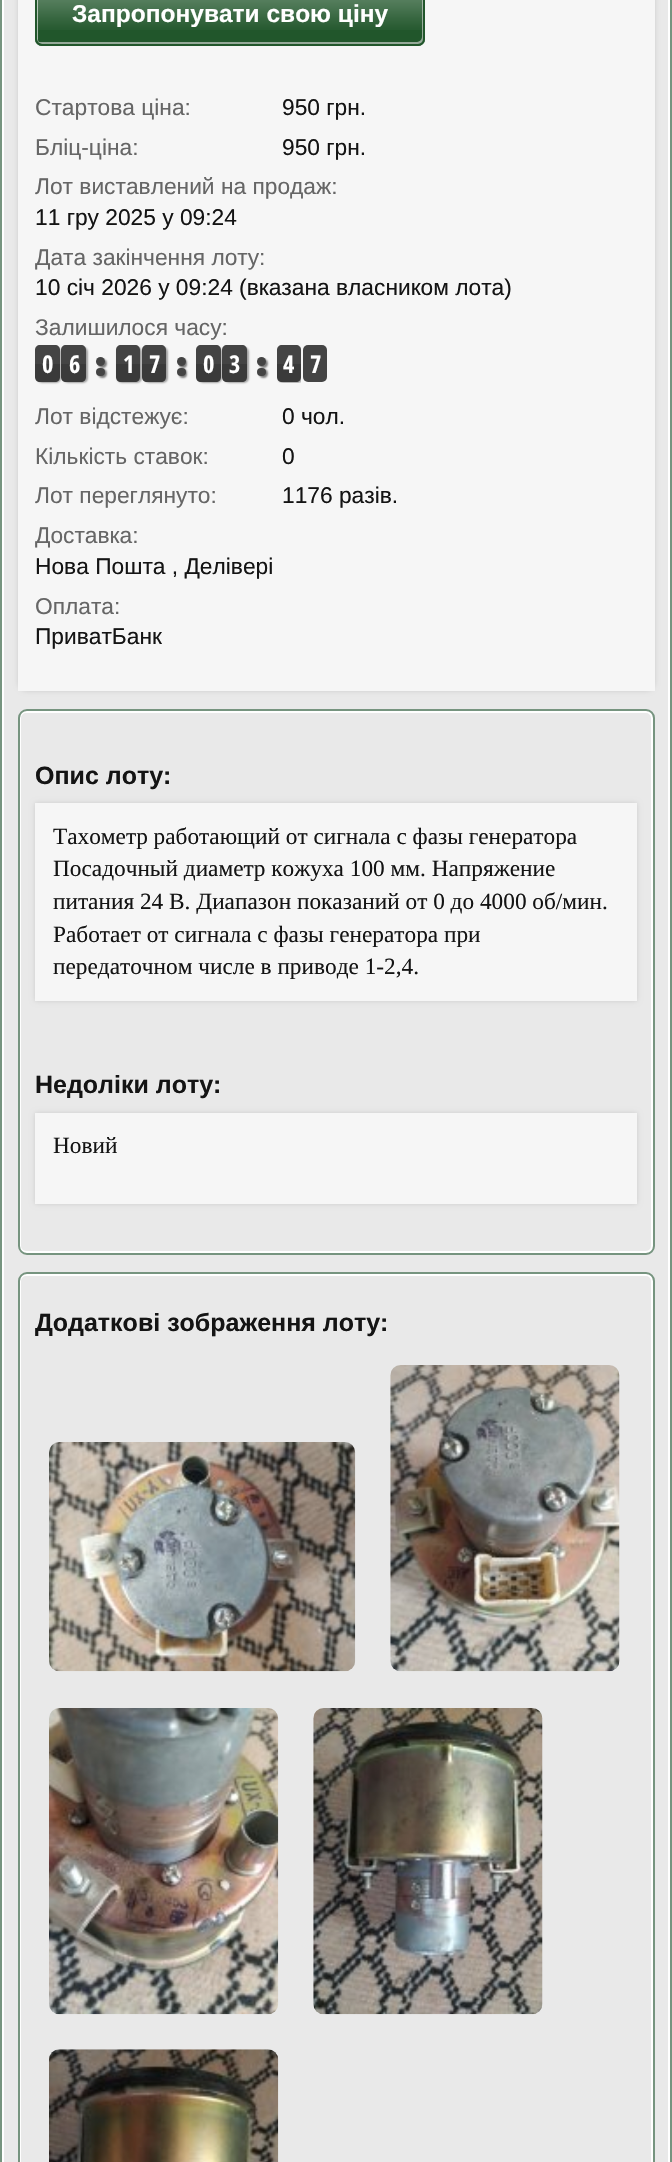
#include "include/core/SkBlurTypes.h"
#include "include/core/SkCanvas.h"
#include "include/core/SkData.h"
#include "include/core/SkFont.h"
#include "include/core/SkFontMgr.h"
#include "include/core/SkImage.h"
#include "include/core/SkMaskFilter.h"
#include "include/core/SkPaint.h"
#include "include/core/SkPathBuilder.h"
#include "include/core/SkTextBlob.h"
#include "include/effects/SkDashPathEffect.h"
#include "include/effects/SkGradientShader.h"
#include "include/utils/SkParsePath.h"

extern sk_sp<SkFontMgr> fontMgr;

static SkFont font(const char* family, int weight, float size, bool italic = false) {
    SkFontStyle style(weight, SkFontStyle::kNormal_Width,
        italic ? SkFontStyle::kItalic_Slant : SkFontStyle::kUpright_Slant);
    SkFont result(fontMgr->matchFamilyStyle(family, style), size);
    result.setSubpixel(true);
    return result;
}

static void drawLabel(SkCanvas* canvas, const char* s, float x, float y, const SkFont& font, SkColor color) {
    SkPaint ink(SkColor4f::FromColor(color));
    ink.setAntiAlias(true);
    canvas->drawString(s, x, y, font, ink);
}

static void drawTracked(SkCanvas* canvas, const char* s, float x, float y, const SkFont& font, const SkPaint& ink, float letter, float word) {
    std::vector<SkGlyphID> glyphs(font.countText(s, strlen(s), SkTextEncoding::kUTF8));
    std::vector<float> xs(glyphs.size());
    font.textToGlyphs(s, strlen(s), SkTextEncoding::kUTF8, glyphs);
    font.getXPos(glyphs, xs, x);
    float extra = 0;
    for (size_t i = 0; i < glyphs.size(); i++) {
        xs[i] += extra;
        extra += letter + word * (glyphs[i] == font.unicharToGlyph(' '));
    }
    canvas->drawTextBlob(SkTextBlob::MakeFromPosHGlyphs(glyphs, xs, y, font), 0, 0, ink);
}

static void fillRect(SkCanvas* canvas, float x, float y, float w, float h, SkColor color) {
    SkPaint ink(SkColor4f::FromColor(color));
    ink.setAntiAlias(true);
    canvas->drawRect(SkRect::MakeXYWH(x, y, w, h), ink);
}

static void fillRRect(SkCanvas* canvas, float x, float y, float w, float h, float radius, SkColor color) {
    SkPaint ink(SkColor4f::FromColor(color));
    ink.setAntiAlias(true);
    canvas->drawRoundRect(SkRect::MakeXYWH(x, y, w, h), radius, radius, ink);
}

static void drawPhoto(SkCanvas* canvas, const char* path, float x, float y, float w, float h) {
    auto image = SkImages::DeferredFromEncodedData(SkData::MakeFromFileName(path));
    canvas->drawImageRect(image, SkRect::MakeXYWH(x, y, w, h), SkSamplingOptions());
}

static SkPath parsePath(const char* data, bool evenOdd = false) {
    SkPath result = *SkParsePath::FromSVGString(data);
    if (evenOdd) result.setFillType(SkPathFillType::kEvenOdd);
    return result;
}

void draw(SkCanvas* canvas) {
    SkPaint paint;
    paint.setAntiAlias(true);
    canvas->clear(0xFFE9E9E9);
    paint.setStroke(true);
    paint.setStrokeWidth(2);
    paint.setColor(0xFFFFFFFF);
    canvas->drawRect(SkRect::MakeXYWH(3, -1, 666, 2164), paint);
    paint.setColor(0xFF76947F);
    canvas->drawRect(SkRect::MakeXYWH(1, -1, 670, 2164), paint);
    paint.setStroke(false);
    paint.setColor(0xFFCCCCCC);
    paint.setMaskFilter(SkMaskFilter::MakeBlur(kNormal_SkBlurStyle, 2.5f));
    canvas->drawRoundRect(SkRect::MakeXYWH(18, -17, 637, 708), 9, 9, paint);
    paint.setMaskFilter(nullptr);
    fillRect(canvas, 18, 0, 637, 691, 0xFFF6F6F6);
    fillRRect(canvas, 35, -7, 390, 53, 7, 0xFF21562B);
    drawPhoto(canvas, "assets/img1.png", 37, 0, 386, 30);
    paint.setColor(0x99FFFFFF);
    canvas->drawPath(parsePath("M38 42C39 43 40 44 42 44H419C422 44 424 42 424 39V-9C424-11 422-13 420-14C421-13 422-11 422-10V37C422 40 419 42 416 42H40Z"), paint);
    paint.setColor(0x1A000000);
    canvas->drawPath(parsePath("M38 42C39 43 40 44 42 44H419C422 44 424 42 424 39V-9C424-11 422-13 420-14C421-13 422-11 422-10V37C422 40 419 42 416 42H40Z"), paint);
    paint.setColor(0x99FFFFFF);
    canvas->drawPath(parsePath("M44-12H420C422-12 423-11 424-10C423-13 421-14 419-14H42C39-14 37-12 37-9V39C37 41 38 42 39 43L38 40V-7C38-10 41-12 44-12Z"), paint);
    paint.setStroke(true);
    paint.setColor(0xFF21562B);
    canvas->drawRoundRect(SkRect::MakeXYWH(36, -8, 388, 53), 6, 6, paint);
    SkFont font1 = font("Liberation Sans", 700, 24.5f);
    drawLabel(canvas, "Запропонувати свою ціну", 72, 22, font1, 0xFFFFFFFF);
    SkFont font2 = font("Liberation Sans", 400, 22.75f);
    drawLabel(canvas, "Стартова ціна:", 35, 115, font2, 0xFF666666);
    drawLabel(canvas, "950 грн.", 282, 115, font2, 0xFF141414);
    drawLabel(canvas, "Бліц-ціна:", 35, 155, font2, 0xFF666666);
    drawLabel(canvas, "950 грн.", 282, 155, font2, 0xFF141414);
    drawLabel(canvas, "Лот виставлений на продаж:", 35, 194, font2, 0xFF666666);
    drawLabel(canvas, "11 гру 2025 у 09:24", 35, 225, font2, 0xFF141414);
    drawLabel(canvas, "Дата закінчення лоту:", 35, 265, font2, 0xFF666666);
    drawLabel(canvas, "10 січ 2026 у 09:24 (вказана власником лота)", 35, 295, font2, 0xFF141414);
    drawLabel(canvas, "Залишилося часу:", 35, 335, font2, 0xFF666666);
    paint.setStroke(false);
    paint.setColor(0x59040404);
    paint.setMaskFilter(SkMaskFilter::MakeBlur(kNormal_SkBlurStyle, 1));
    canvas->drawRoundRect(SkRect::MakeXYWH(37, 347, 24, 36), 5, 5, paint);
    paint.setMaskFilter(nullptr);
    paint.setColor(0xFF3A3A3A);
    canvas->drawPath(parsePath("M35 364H60V377C60 380 58 382 55 382H40C37 382 35 380 35 377Z"), paint);
    paint.setColor(0xFF444444);
    canvas->drawPath(parsePath("M40 345H55C58 345 60 347 60 350V364H35V350C35 347 37 345 40 345Z"), paint);
    SkFont font3 = font("Open Sans Condensed", 700, 24.5f);
    paint.setColor(0xFFFFFFFF);
    drawTracked(canvas, "0", 42, 373, font3, paint, -2, 0);
    paint.setColor(0x59040404);
    paint.setMaskFilter(SkMaskFilter::MakeBlur(kNormal_SkBlurStyle, 1));
    canvas->drawRoundRect(SkRect::MakeXYWH(63, 347, 25, 36), 5, 5, paint);
    paint.setMaskFilter(nullptr);
    paint.setColor(0xFF3A3A3A);
    canvas->drawPath(parsePath("M61 364H86V377C86 380 84 382 81 382H66C63 382 61 380 61 377Z"), paint);
    paint.setColor(0xFF444444);
    canvas->drawPath(parsePath("M66 345H81C84 345 86 347 86 350V364H61V350C61 347 63 345 66 345Z"), paint);
    paint.setColor(0xFFFFFFFF);
    drawTracked(canvas, "6", 69, 373, font3, paint, -2, 0);
    paint.setColor(0x80040404);
    paint.setMaskFilter(SkMaskFilter::MakeBlur(kNormal_SkBlurStyle, 1));
    canvas->drawRoundRect(SkRect::MakeXYWH(98, 359, 9, 9), 4.5f, 4.5f, paint);
    paint.setMaskFilter(nullptr);
    paint.setColor(0xFF444444);
    canvas->drawCircle(100.5f, 361.5f, 4.5f, paint);
    paint.setColor(0x80040404);
    paint.setMaskFilter(SkMaskFilter::MakeBlur(kNormal_SkBlurStyle, 1));
    canvas->drawRoundRect(SkRect::MakeXYWH(98, 369, 9, 9), 4.5f, 4.5f, paint);
    paint.setMaskFilter(nullptr);
    fillRRect(canvas, 96, 368, 9, 8, 4, 0xFF444444);
    paint.setColor(0x59040404);
    paint.setMaskFilter(SkMaskFilter::MakeBlur(kNormal_SkBlurStyle, 1));
    canvas->drawRoundRect(SkRect::MakeXYWH(117, 347, 25, 36), 5, 5, paint);
    paint.setMaskFilter(nullptr);
    paint.setColor(0xFF3A3A3A);
    canvas->drawPath(parsePath("M116 364H140V377C140 380 138 382 135 382H121C118 382 116 380 116 377Z"), paint);
    paint.setColor(0xFF444444);
    canvas->drawPath(parsePath("M121 345H135C138 345 140 347 140 350V364H116V350C116 347 118 345 121 345Z"), paint);
    paint.setColor(0xFFFFFFFF);
    drawTracked(canvas, "1", 123, 373, font3, paint, -2, 0);
    paint.setColor(0x59040404);
    paint.setMaskFilter(SkMaskFilter::MakeBlur(kNormal_SkBlurStyle, 1));
    canvas->drawRoundRect(SkRect::MakeXYWH(144, 347, 24, 36), 5, 5, paint);
    paint.setMaskFilter(nullptr);
    paint.setColor(0xFF3A3A3A);
    canvas->drawPath(parsePath("M142 364H166V377C166 380 164 382 161 382H147C144 382 142 380 142 377Z"), paint);
    paint.setColor(0xFF444444);
    canvas->drawPath(parsePath("M147 345H161C164 345 166 347 166 350V364H142V350C142 347 144 345 147 345Z"), paint);
    paint.setColor(0xFFFFFFFF);
    drawTracked(canvas, "7", 149, 373, font3, paint, -2, 0);
    paint.setColor(0x80040404);
    paint.setMaskFilter(SkMaskFilter::MakeBlur(kNormal_SkBlurStyle, 1));
    canvas->drawRoundRect(SkRect::MakeXYWH(179, 359, 8, 9), 4, 4, paint);
    paint.setMaskFilter(nullptr);
    paint.setColor(0xFF444444);
    canvas->drawCircle(181.5f, 361.5f, 4.5f, paint);
    paint.setColor(0x80040404);
    paint.setMaskFilter(SkMaskFilter::MakeBlur(kNormal_SkBlurStyle, 1));
    canvas->drawRoundRect(SkRect::MakeXYWH(179, 369, 8, 9), 4, 4, paint);
    paint.setMaskFilter(nullptr);
    fillRRect(canvas, 177, 368, 9, 8, 4, 0xFF444444);
    paint.setColor(0x59040404);
    paint.setMaskFilter(SkMaskFilter::MakeBlur(kNormal_SkBlurStyle, 1));
    canvas->drawRoundRect(SkRect::MakeXYWH(198, 347, 24, 36), 5, 5, paint);
    paint.setMaskFilter(nullptr);
    paint.setColor(0xFF3A3A3A);
    canvas->drawPath(parsePath("M196 364H221V377C221 380 219 382 216 382H201C198 382 196 380 196 377Z"), paint);
    paint.setColor(0xFF444444);
    canvas->drawPath(parsePath("M201 345H216C219 345 221 347 221 350V364H196V350C196 347 198 345 201 345Z"), paint);
    paint.setColor(0xFFFFFFFF);
    drawTracked(canvas, "0", 203, 373, font3, paint, -2, 0);
    paint.setColor(0x59040404);
    paint.setMaskFilter(SkMaskFilter::MakeBlur(kNormal_SkBlurStyle, 1));
    canvas->drawRoundRect(SkRect::MakeXYWH(224, 347, 25, 36), 5, 5, paint);
    paint.setMaskFilter(nullptr);
    paint.setColor(0xFF3A3A3A);
    canvas->drawPath(parsePath("M222 364H247V377C247 380 245 382 242 382H227C224 382 222 380 222 377Z"), paint);
    paint.setColor(0xFF444444);
    canvas->drawPath(parsePath("M227 345H242C245 345 247 347 247 350V364H222V350C222 347 224 345 227 345Z"), paint);
    paint.setColor(0xFFFFFFFF);
    drawTracked(canvas, "3", 229, 373, font3, paint, -2, 0);
    paint.setColor(0x80040404);
    paint.setMaskFilter(SkMaskFilter::MakeBlur(kNormal_SkBlurStyle, 1));
    canvas->drawRoundRect(SkRect::MakeXYWH(259, 359, 9, 9), 4.5f, 4.5f, paint);
    paint.setMaskFilter(nullptr);
    paint.setColor(0xFF444444);
    canvas->drawCircle(261.5f, 361.5f, 4.5f, paint);
    paint.setColor(0x80040404);
    paint.setMaskFilter(SkMaskFilter::MakeBlur(kNormal_SkBlurStyle, 1));
    canvas->drawRoundRect(SkRect::MakeXYWH(259, 369, 9, 9), 4.5f, 4.5f, paint);
    paint.setMaskFilter(nullptr);
    fillRRect(canvas, 257, 368, 9, 8, 4, 0xFF444444);
    canvas->save();
    canvas->clipRect(SkRect::MakeXYWH(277, 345, 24, 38));
    paint.setColor(0x59040404);
    paint.setMaskFilter(SkMaskFilter::MakeBlur(kNormal_SkBlurStyle, 1));
    canvas->drawRoundRect(SkRect::MakeXYWH(278, 347, 25, 36), 5, 5, paint);
    paint.setMaskFilter(nullptr);
    canvas->restore();
    paint.setColor(0xFF3A3A3A);
    canvas->drawPath(parsePath("M277 364H301V377C301 380 299 382 296 382H282C279 382 277 380 277 377Z"), paint);
    paint.setColor(0xFF444444);
    canvas->drawPath(parsePath("M282 345H296C299 345 301 347 301 350V364H277V350C277 347 279 345 282 345Z"), paint);
    paint.setColor(0xFFFFFFFF);
    drawTracked(canvas, "4", 283, 373, font3, paint, -2, 0);
    fillRRect(canvas, 303, 345, 24, 37, 5, 0xFF444444);
    drawTracked(canvas, "7", 310, 373, font3, paint, -2, 0);
    drawLabel(canvas, "Лот відстежує:", 35, 424, font2, 0xFF666666);
    drawLabel(canvas, "0 чол.", 282, 424, font2, 0xFF141414);
    drawLabel(canvas, "Кількість ставок:", 35, 464, font2, 0xFF666666);
    drawLabel(canvas, "0", 282, 464, font2, 0xFF141414);
    drawLabel(canvas, "Лот переглянуто:", 35, 503, font2, 0xFF666666);
    drawLabel(canvas, "1176 разів.", 282, 503, font2, 0xFF141414);
    drawLabel(canvas, "Доставка:", 35, 543, font2, 0xFF666666);
    drawLabel(canvas, "Нова Пошта , Делівері", 35, 574, font2, 0xFF141414);
    drawLabel(canvas, "Оплата:", 35, 614, font2, 0xFF666666);
    drawLabel(canvas, "ПриватБанк", 35, 644, font2, 0xFF141414);
    paint.setStroke(true);
    canvas->drawRoundRect(SkRect::MakeXYWH(20, 712, 632, 540), 6, 6, paint);
    paint.setColor(0xFF76947F);
    canvas->drawRoundRect(SkRect::MakeXYWH(19, 710, 635, 544), 8, 8, paint);
    SkFont font4 = font("Liberation Sans", 700, 25);
    drawLabel(canvas, "Опис лоту:", 35, 784, font4, 0xFF141414);
    paint.setStroke(false);
    paint.setColor(0xFFCCCCCC);
    paint.setMaskFilter(SkMaskFilter::MakeBlur(kNormal_SkBlurStyle, 2.5f));
    canvas->drawRect(SkRect::MakeXYWH(35, 803, 602, 198), paint);
    paint.setMaskFilter(nullptr);
    fillRect(canvas, 35, 803, 602, 198, 0xFFF6F6F6);
    SkFont font5 = font("Liberation Serif", 400, 23.3f);
    drawLabel(canvas, "Тахометр работающий от сигнала с фазы генератора", 53, 844, font5, 0xFF141414);
    drawLabel(canvas, "Посадочный диаметр кожуха 100 мм. Напряжение", 53, 876, font5, 0xFF141414);
    drawLabel(canvas, "питания 24 В. Диапазон показаний от 0 до 4000 об/мин.", 53, 909, font5, 0xFF141414);
    drawLabel(canvas, "Работает от сигнала с фазы генератора при", 53, 942, font5, 0xFF141414);
    drawLabel(canvas, "передаточном числе в приводе 1-2,4.", 53, 974, font5, 0xFF141414);
    drawLabel(canvas, "Недоліки лоту:", 35, 1093, font4, 0xFF141414);
    paint.setMaskFilter(SkMaskFilter::MakeBlur(kNormal_SkBlurStyle, 2.5f));
    canvas->drawRect(SkRect::MakeXYWH(35, 1113, 602, 91), paint);
    paint.setMaskFilter(nullptr);
    fillRect(canvas, 35, 1113, 602, 91, 0xFFF6F6F6);
    drawLabel(canvas, "Новий", 53, 1153, font5, 0xFF141414);
    paint.setStroke(true);
    paint.setColor(0xFFFFFFFF);
    canvas->drawRoundRect(SkRect::MakeXYWH(20, 1275, 632, 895), 6, 6, paint);
    paint.setColor(0xFF76947F);
    canvas->drawRoundRect(SkRect::MakeXYWH(19, 1273, 635, 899), 8, 8, paint);
    drawLabel(canvas, "Додаткові зображення лоту:", 35, 1331, font4, 0xFF141414);
    drawPhoto(canvas, "assets/img2.png", 49, 1442, 307, 230);
    drawPhoto(canvas, "assets/img3.png", 390, 1365, 230, 307);
    drawPhoto(canvas, "assets/img4.png", 49, 1708, 230, 307);
    drawPhoto(canvas, "assets/img5.png", 313, 1708, 230, 307);
    drawPhoto(canvas, "assets/img6.png", 49, 2049, 230, 113);
}
